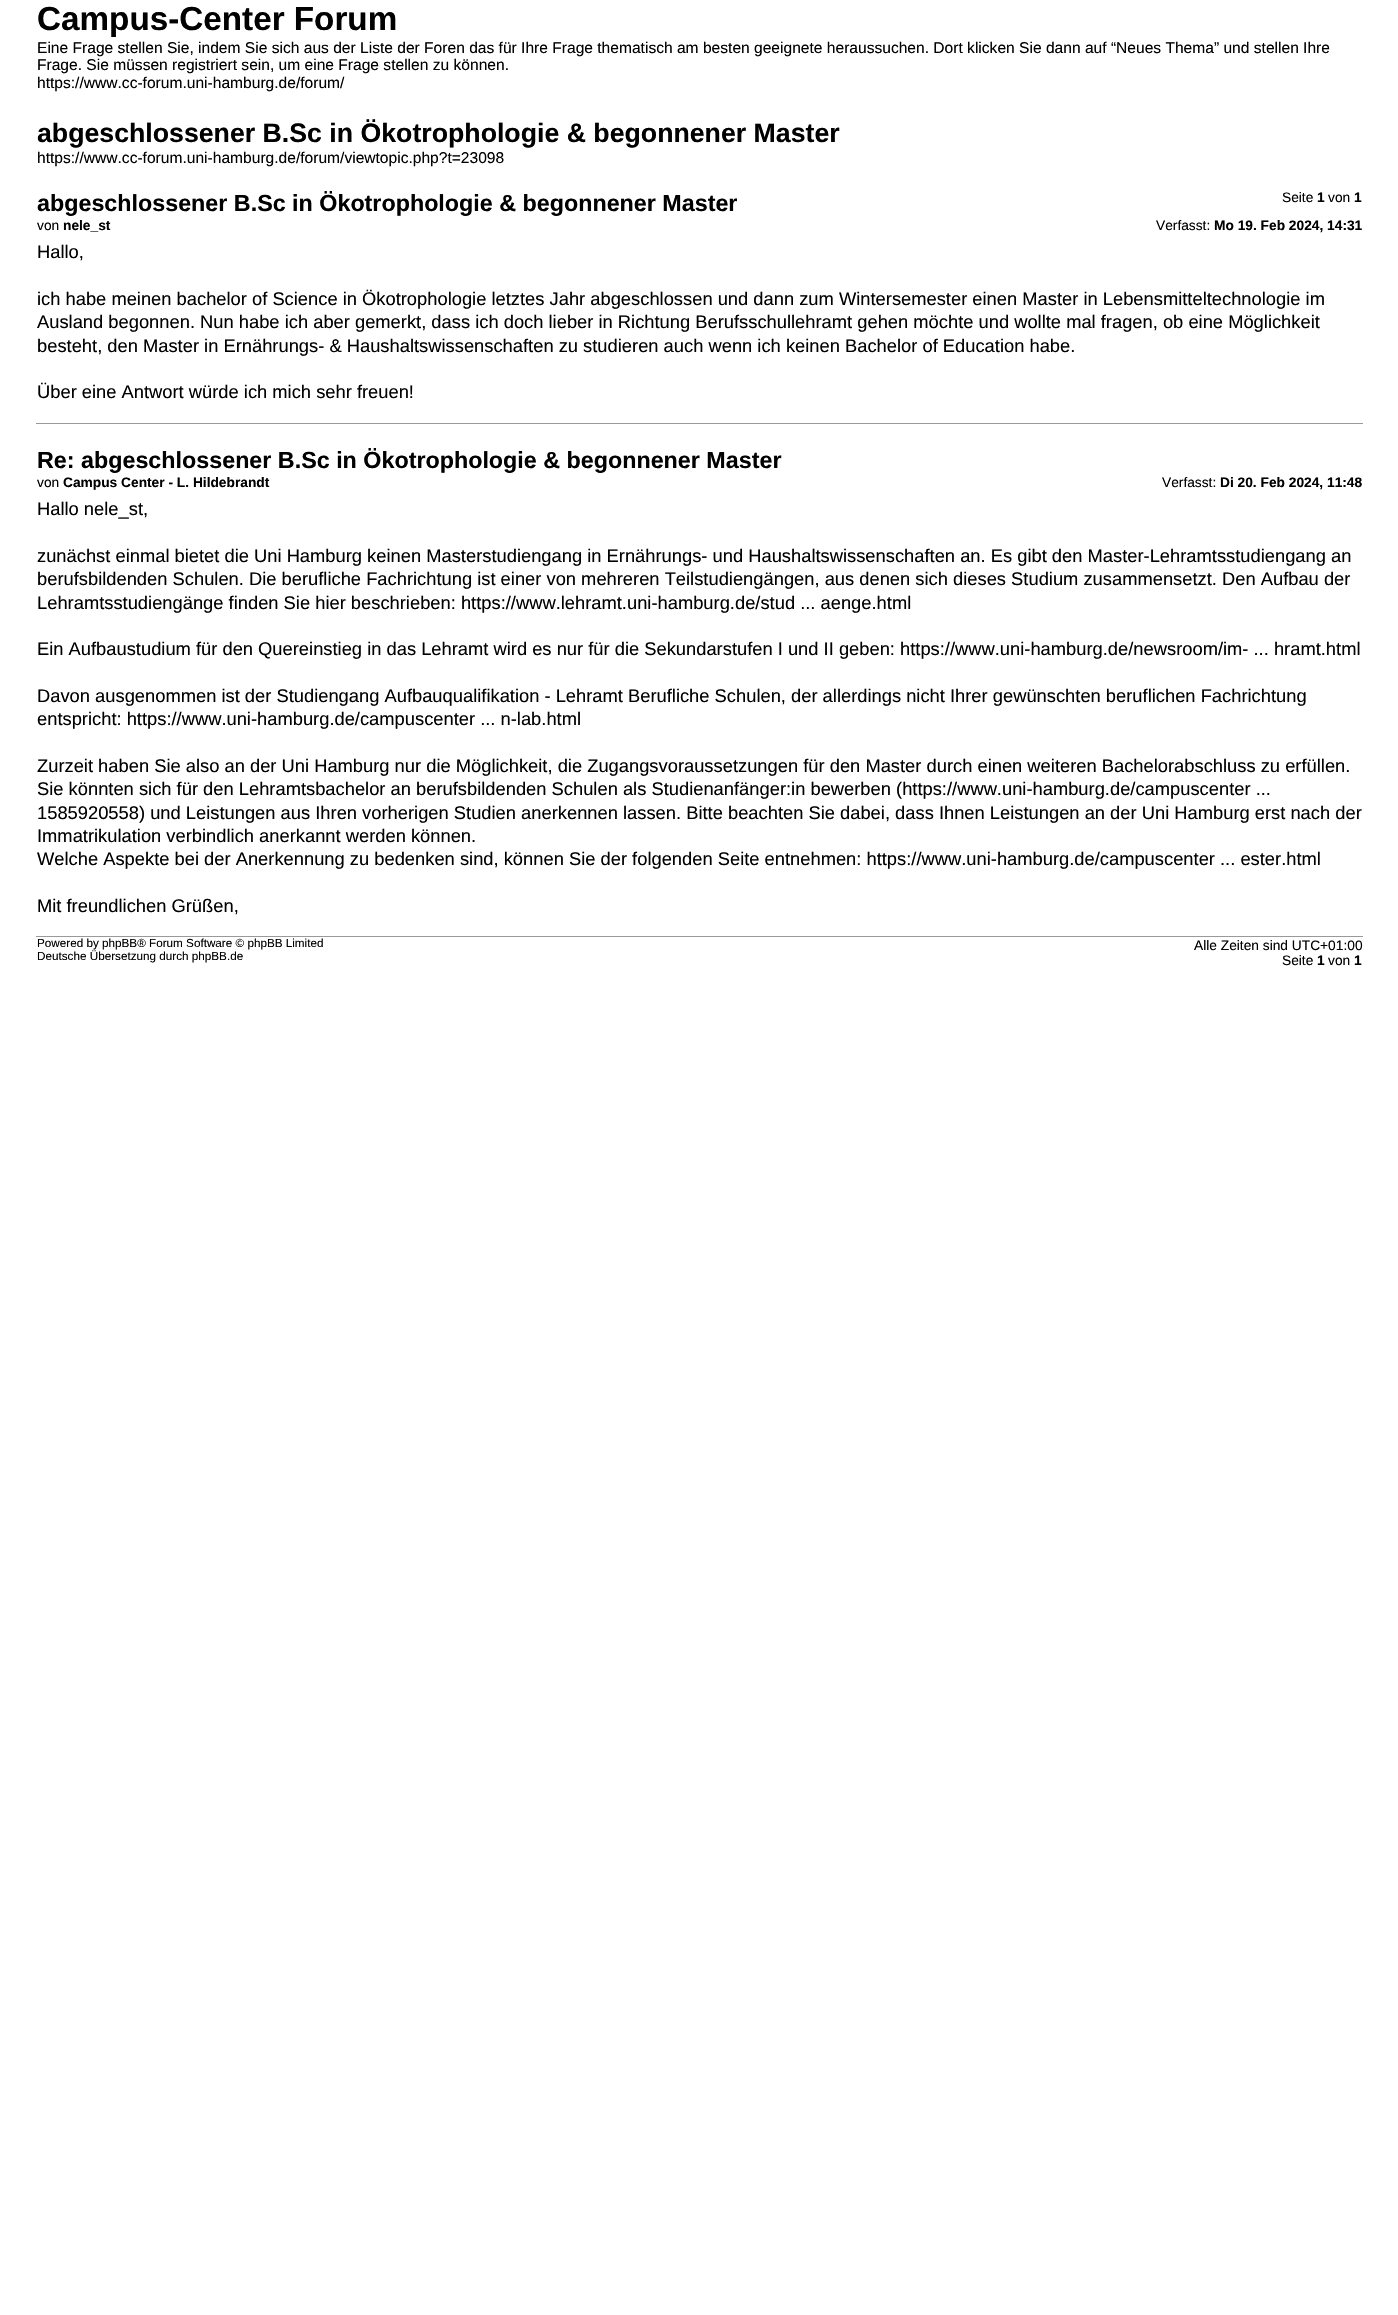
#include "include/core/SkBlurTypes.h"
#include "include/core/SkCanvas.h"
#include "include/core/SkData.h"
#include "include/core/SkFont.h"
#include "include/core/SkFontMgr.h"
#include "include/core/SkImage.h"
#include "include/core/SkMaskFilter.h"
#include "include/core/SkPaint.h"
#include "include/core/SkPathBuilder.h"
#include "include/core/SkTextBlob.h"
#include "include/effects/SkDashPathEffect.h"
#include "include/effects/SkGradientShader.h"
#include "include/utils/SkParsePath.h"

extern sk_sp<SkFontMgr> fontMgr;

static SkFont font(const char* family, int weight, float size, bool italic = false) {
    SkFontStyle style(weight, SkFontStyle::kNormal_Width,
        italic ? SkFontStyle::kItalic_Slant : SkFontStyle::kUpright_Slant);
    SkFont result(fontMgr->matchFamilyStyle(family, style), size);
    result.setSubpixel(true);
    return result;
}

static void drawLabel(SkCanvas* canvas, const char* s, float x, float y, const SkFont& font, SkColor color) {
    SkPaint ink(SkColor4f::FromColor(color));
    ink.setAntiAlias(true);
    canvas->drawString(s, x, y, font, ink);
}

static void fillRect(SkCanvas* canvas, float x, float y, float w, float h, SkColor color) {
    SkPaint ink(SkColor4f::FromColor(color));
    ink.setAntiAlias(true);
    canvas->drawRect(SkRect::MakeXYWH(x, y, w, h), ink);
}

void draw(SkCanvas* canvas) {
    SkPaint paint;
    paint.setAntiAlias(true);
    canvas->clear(0xFFFFFFFF);
    SkFont font1 = font("Liberation Sans", 700, 33.25f);
    drawLabel(canvas, "Campus-Center Forum", 37, 30, font1, 0xFF000000);
    SkFont font2 = font("Liberation Sans", 400, 15.58f);
    drawLabel(canvas, "Eine Frage stellen Sie, indem Sie sich aus der Liste der Foren das für Ihre Frage thematisch am besten geeignete heraussuchen. Dort klicken Sie dann auf “Neues Thema” und stellen Ihre", 37, 53, font2, 0xFF000000);
    drawLabel(canvas, "Frage. Sie müssen registriert sein, um eine Frage stellen zu können.", 37, 70, font2, 0xFF000000);
    drawLabel(canvas, "https://www.cc-forum.uni-hamburg.de/forum/", 37, 88, font2, 0xFF000000);
    SkFont font3 = font("Liberation Sans", 700, 26.7f);
    drawLabel(canvas, "abgeschlossener B.Sc in Ökotrophologie & begonnener Master", 37, 142, font3, 0xFF000000);
    drawLabel(canvas, "https://www.cc-forum.uni-hamburg.de/forum/viewtopic.php?t=23098", 37, 163, font2, 0xFF000000);
    SkFont font4 = font("Liberation Sans", 700, 23.3f);
    drawLabel(canvas, "abgeschlossener B.Sc in Ökotrophologie & begonnener Master", 37, 211, font4, 0xFF000000);
    SkFont font5 = font("Liberation Sans", 400, 13.75f);
    drawLabel(canvas, "von", 37, 230, font5, 0xFF000000);
    SkFont font6 = font("Liberation Sans", 700, 13.75f);
    drawLabel(canvas, "nele_st", 63, 230, font6, 0xFF000000);
    drawLabel(canvas, "Verfasst:", 1156, 230, font5, 0xFF000000);
    drawLabel(canvas, "Mo 19. Feb 2024, 14:31", 1214, 230, font6, 0xFF000000);
    SkFont font7 = font("Liberation Sans", 400, 18.33f);
    drawLabel(canvas, "Hallo,", 37, 258, font7, 0xFF000000);
    drawLabel(canvas, "ich habe meinen bachelor of Science in Ökotrophologie letztes Jahr abgeschlossen und dann zum Wintersemester einen Master in Lebensmitteltechnologie im", 37, 305, font7, 0xFF000000);
    drawLabel(canvas, "Ausland begonnen. Nun habe ich aber gemerkt, dass ich doch lieber in Richtung Berufsschullehramt gehen möchte und wollte mal fragen, ob eine Möglichkeit", 37, 328, font7, 0xFF000000);
    drawLabel(canvas, "besteht, den Master in Ernährungs- & Haushaltswissenschaften zu studieren auch wenn ich keinen Bachelor of Education habe.", 37, 352, font7, 0xFF000000);
    drawLabel(canvas, "Über eine Antwort würde ich mich sehr freuen!", 37, 398, font7, 0xFF000000);
    drawLabel(canvas, "Seite", 1282, 202, font5, 0xFF000000);
    drawLabel(canvas, "1", 1317, 202, font6, 0xFF000000);
    drawLabel(canvas, "von", 1328, 202, font5, 0xFF000000);
    drawLabel(canvas, "1", 1354, 202, font6, 0xFF000000);
    fillRect(canvas, 36, 423, 1327, 1, 0xFF999999);
    drawLabel(canvas, "Re: abgeschlossener B.Sc in Ökotrophologie & begonnener Master", 37, 468, font4, 0xFF000000);
    drawLabel(canvas, "von", 37, 487, font5, 0xFF000000);
    drawLabel(canvas, "Campus Center - L. Hildebrandt", 63, 487, font6, 0xFF000000);
    drawLabel(canvas, "Verfasst:", 1162, 487, font5, 0xFF000000);
    drawLabel(canvas, "Di 20. Feb 2024, 11:48", 1220, 487, font6, 0xFF000000);
    drawLabel(canvas, "Hallo nele_st,", 37, 515, font7, 0xFF000000);
    drawLabel(canvas, "zunächst einmal bietet die Uni Hamburg keinen Masterstudiengang in Ernährungs- und Haushaltswissenschaften an. Es gibt den Master-Lehramtsstudiengang an", 37, 562, font7, 0xFF000000);
    drawLabel(canvas, "berufsbildenden Schulen. Die berufliche Fachrichtung ist einer von mehreren Teilstudiengängen, aus denen sich dieses Studium zusammensetzt. Den Aufbau der", 37, 585, font7, 0xFF000000);
    drawLabel(canvas, "Lehramtsstudiengänge finden Sie hier beschrieben: https://www.lehramt.uni-hamburg.de/stud ... aenge.html", 37, 609, font7, 0xFF000000);
    drawLabel(canvas, "Ein Aufbaustudium für den Quereinstieg in das Lehramt wird es nur für die Sekundarstufen I und II geben: https://www.uni-hamburg.de/newsroom/im- ... hramt.html", 37, 655, font7, 0xFF000000);
    drawLabel(canvas, "Davon ausgenommen ist der Studiengang Aufbauqualifikation - Lehramt Berufliche Schulen, der allerdings nicht Ihrer gewünschten beruflichen Fachrichtung", 37, 702, font7, 0xFF000000);
    drawLabel(canvas, "entspricht: https://www.uni-hamburg.de/campuscenter ... n-lab.html", 37, 725, font7, 0xFF000000);
    drawLabel(canvas, "Zurzeit haben Sie also an der Uni Hamburg nur die Möglichkeit, die Zugangsvoraussetzungen für den Master durch einen weiteren Bachelorabschluss zu erfüllen.", 37, 772, font7, 0xFF000000);
    drawLabel(canvas, "Sie könnten sich für den Lehramtsbachelor an berufsbildenden Schulen als Studienanfänger:in bewerben (https://www.uni-hamburg.de/campuscenter ...", 37, 795, font7, 0xFF000000);
    drawLabel(canvas, "1585920558) und Leistungen aus Ihren vorherigen Studien anerkennen lassen. Bitte beachten Sie dabei, dass Ihnen Leistungen an der Uni Hamburg erst nach der", 37, 819, font7, 0xFF000000);
    drawLabel(canvas, "Immatrikulation verbindlich anerkannt werden können.", 37, 842, font7, 0xFF000000);
    drawLabel(canvas, "Welche Aspekte bei der Anerkennung zu bedenken sind, können Sie der folgenden Seite entnehmen: https://www.uni-hamburg.de/campuscenter ... ester.html", 37, 865, font7, 0xFF000000);
    drawLabel(canvas, "Mit freundlichen Grüßen,", 37, 912, font7, 0xFF000000);
    fillRect(canvas, 36, 936, 1327, 1, 0xFF999999);
    SkFont font8 = font("Liberation Sans", 400, 11.7f);
    drawLabel(canvas, "Powered by phpBB® Forum Software © phpBB Limited", 37, 947, font8, 0xFF000000);
    drawLabel(canvas, "Deutsche Übersetzung durch phpBB.de", 37, 960, font8, 0xFF000000);
    drawLabel(canvas, "Alle Zeiten sind UTC+01:00", 1194, 950, font5, 0xFF000000);
    drawLabel(canvas, "Seite", 1282, 965, font5, 0xFF000000);
    drawLabel(canvas, "1", 1317, 965, font6, 0xFF000000);
    drawLabel(canvas, "von", 1328, 965, font5, 0xFF000000);
    drawLabel(canvas, "1", 1354, 965, font6, 0xFF000000);
}
